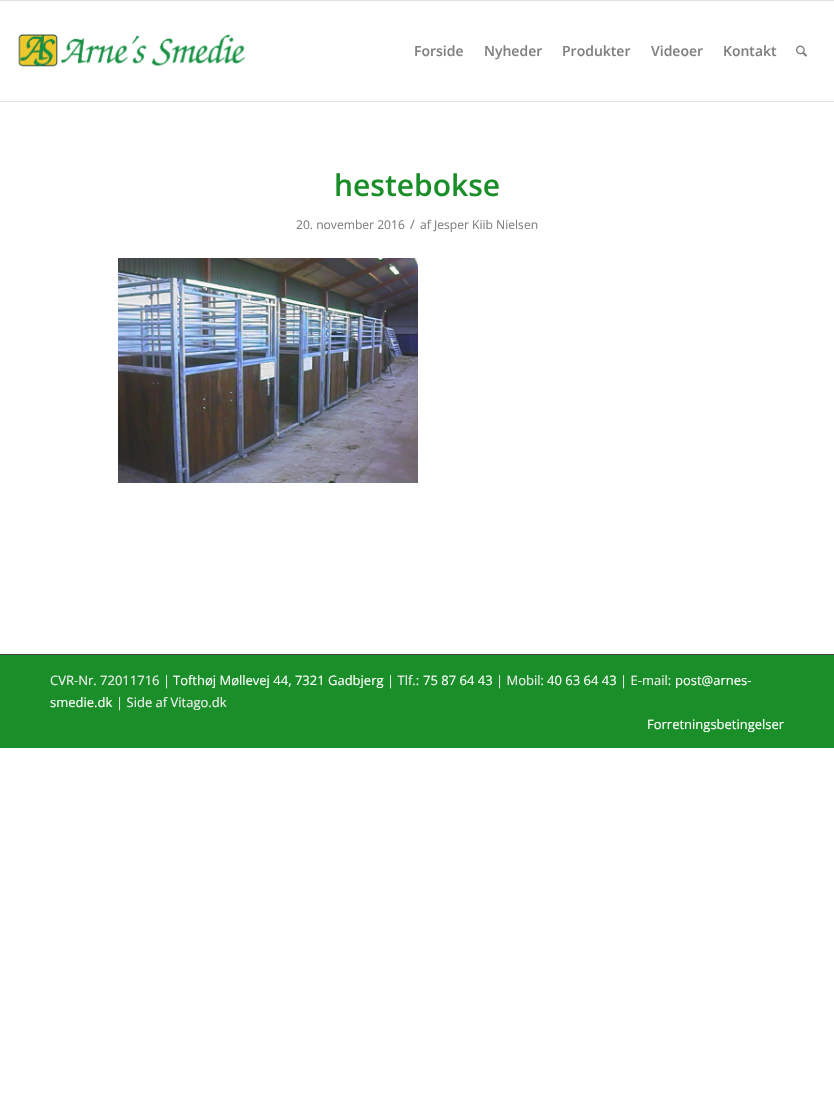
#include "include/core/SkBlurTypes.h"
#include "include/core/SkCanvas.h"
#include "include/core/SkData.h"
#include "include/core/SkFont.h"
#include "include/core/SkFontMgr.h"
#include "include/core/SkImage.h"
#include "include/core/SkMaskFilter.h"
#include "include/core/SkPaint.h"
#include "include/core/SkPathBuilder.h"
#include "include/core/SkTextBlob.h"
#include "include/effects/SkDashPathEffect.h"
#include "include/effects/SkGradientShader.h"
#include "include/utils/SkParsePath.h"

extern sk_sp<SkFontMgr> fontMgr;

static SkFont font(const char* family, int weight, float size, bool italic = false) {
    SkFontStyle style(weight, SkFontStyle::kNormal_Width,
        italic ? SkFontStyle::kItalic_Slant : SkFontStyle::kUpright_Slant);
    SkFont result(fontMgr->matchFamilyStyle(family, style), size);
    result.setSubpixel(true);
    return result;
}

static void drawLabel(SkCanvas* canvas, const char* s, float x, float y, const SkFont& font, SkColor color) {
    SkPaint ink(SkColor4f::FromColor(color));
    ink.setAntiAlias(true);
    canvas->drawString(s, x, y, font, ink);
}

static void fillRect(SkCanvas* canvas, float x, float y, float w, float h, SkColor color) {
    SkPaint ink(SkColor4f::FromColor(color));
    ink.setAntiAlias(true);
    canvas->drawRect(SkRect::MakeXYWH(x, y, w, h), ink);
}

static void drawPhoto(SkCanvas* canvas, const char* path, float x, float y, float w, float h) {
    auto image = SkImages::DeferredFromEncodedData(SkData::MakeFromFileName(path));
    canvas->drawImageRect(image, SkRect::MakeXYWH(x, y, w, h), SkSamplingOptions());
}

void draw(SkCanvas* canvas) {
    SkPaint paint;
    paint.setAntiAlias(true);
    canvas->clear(0xFFFFFFFF);
    fillRect(canvas, 0, 0, 834, 1, 0xFFE1E1E1);
    fillRect(canvas, 0, 101, 834, 1, 0xFFE1E1E1);
    drawPhoto(canvas, "assets/img1.png", 18, 34, 227, 33);
    SkFont font1 = font("Open Sans", 600, 14);
    drawLabel(canvas, "Forside", 414, 56, font1, 0xFF808080);
    drawLabel(canvas, "Nyheder", 484, 56, font1, 0xFF808080);
    drawLabel(canvas, "Produkter", 562, 56, font1, 0xFF808080);
    drawLabel(canvas, "Videoer", 651, 56, font1, 0xFF808080);
    drawLabel(canvas, "Kontakt", 723, 56, font1, 0xFF808080);
    drawPhoto(canvas, "assets/img2.png", 796, 45, 11, 12);
    SkFont font2 = font("Open Sans", 600, 30);
    drawLabel(canvas, "hestebokse", 334, 196, font2, 0xFF1A8F29);
    SkFont font3 = font("Open Sans", 400, 12.1f);
    drawLabel(canvas, "20. november 2016", 296, 229, font3, 0xFF808080);
    SkFont font4 = font("Open Sans", 400, 13);
    drawLabel(canvas, "/", 410, 229, font4, 0xFF808080);
    drawLabel(canvas, "af Jesper Kiib Nielsen", 420, 229, font3, 0xFF808080);
    drawPhoto(canvas, "assets/img3.png", 118, 258, 300, 225);
    fillRect(canvas, 0, 655, 834, 93, 0xFF1A8F29);
    fillRect(canvas, 0, 654, 834, 1, 0xFF444444);
    drawLabel(canvas, "CVR-Nr. 72011716 |", 50, 685, font4, 0xFFEEEEEE);
    drawLabel(canvas, "Tofthøj Møllevej 44, 7321 Gadbjerg", 173, 685, font4, 0xFFFFFFFF);
    drawLabel(canvas, "| Tlf.:", 387, 685, font4, 0xFFEEEEEE);
    drawLabel(canvas, "75 87 64 43", 423, 685, font4, 0xFFFFFFFF);
    drawLabel(canvas, "| Mobil:", 496, 685, font4, 0xFFEEEEEE);
    drawLabel(canvas, "40 63 64 43", 547, 685, font4, 0xFFFFFFFF);
    drawLabel(canvas, "| E-mail:", 620, 685, font4, 0xFFEEEEEE);
    drawLabel(canvas, "post@arnes-", 675, 685, font4, 0xFFFFFFFF);
    drawLabel(canvas, "smedie.dk", 50, 707, font4, 0xFFFFFFFF);
    drawLabel(canvas, "| Side af Vitago.dk", 116, 707, font4, 0xFFEEEEEE);
    drawLabel(canvas, "Forretningsbetingelser", 647, 729, font4, 0xFFFFFFFF);
}
